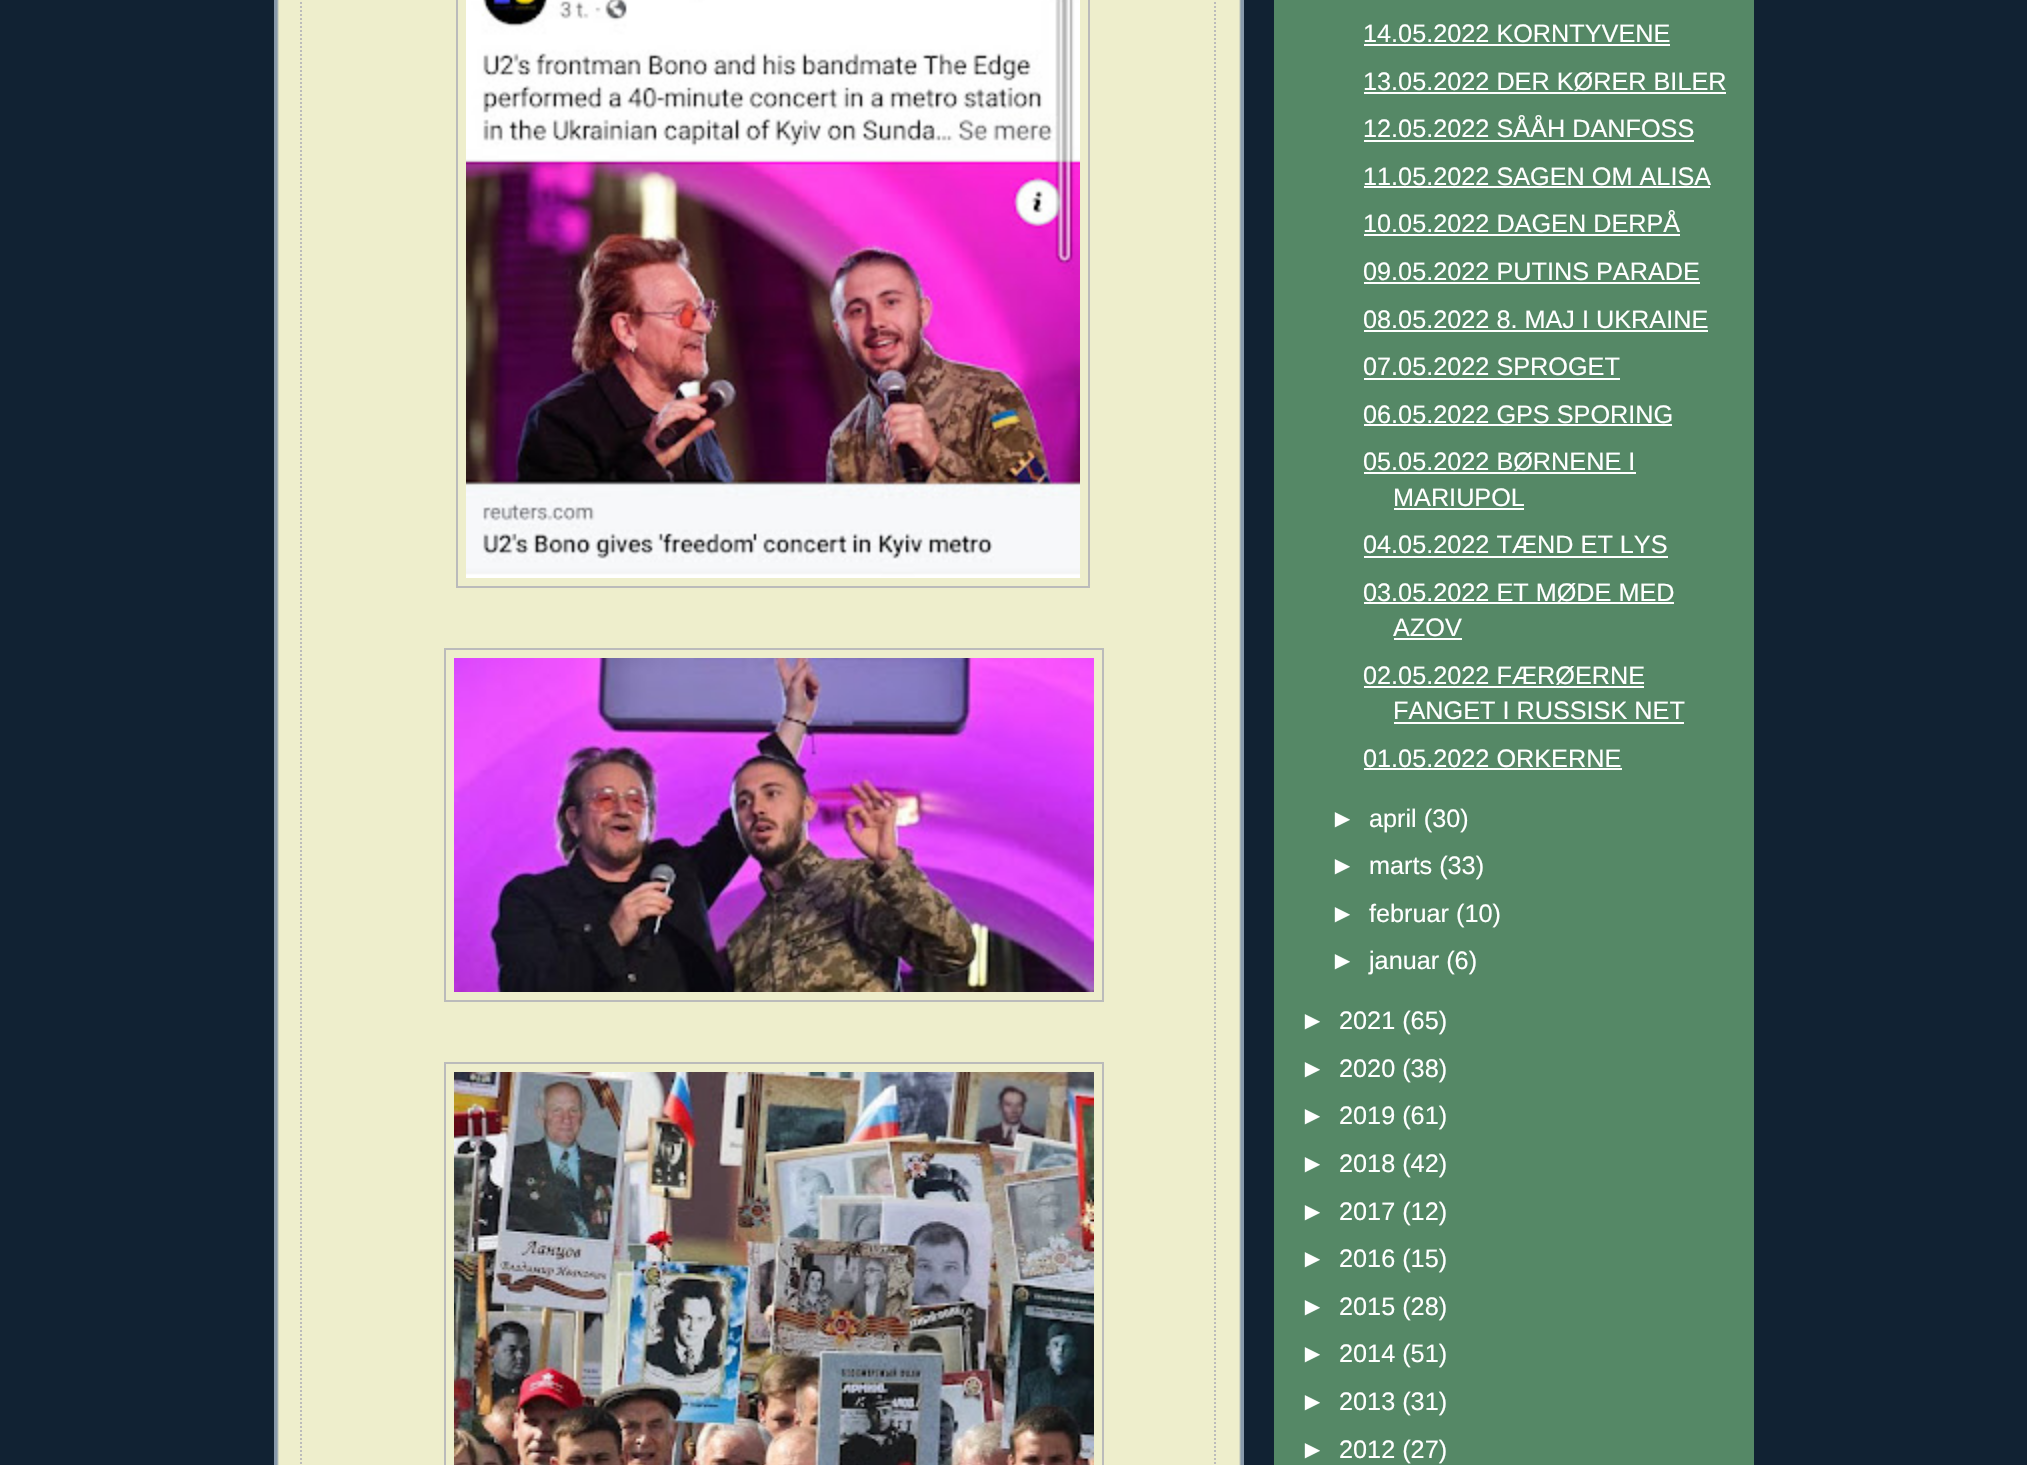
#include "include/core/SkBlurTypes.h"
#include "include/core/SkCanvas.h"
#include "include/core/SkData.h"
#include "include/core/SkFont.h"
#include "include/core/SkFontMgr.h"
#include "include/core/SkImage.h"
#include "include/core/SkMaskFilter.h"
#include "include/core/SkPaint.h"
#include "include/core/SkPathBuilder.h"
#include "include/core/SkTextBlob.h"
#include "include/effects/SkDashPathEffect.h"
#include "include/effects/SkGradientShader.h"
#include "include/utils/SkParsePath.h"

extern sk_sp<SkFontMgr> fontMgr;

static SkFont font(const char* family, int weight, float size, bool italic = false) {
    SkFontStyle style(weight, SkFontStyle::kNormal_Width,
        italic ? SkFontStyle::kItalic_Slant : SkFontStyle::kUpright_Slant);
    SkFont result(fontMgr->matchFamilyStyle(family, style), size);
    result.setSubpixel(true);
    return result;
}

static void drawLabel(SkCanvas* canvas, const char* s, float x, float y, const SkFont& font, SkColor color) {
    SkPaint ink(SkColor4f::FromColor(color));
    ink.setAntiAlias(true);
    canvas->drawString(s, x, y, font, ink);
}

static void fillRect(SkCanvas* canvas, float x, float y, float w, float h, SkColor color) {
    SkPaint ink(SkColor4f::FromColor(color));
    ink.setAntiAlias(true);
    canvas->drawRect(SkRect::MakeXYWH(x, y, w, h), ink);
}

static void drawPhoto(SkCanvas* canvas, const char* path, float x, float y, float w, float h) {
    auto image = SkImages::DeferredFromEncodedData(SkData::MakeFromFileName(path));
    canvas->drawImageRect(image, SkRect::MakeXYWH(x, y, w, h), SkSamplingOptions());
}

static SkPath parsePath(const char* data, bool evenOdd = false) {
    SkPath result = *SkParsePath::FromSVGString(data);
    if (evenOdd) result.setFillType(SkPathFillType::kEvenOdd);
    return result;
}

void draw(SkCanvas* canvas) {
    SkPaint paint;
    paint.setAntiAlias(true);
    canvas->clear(0xFF112233);
    fillRect(canvas, 277, 0, 964, 1465, 0xFFEEEECC);
    drawPhoto(canvas, "assets/img1.png", 274, 0, 970, 1465);
    paint.setStroke(true);
    paint.setStrokeWidth(2);
    paint.setColor(0xFFBBBBBB);
    paint.setPathEffect(SkDashPathEffect::Make({{2, 2}}, 0));
    canvas->drawPath(parsePath("M1215-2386V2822"), paint);
    paint.setPathEffect(nullptr);
    paint.setPathEffect(SkDashPathEffect::Make({{2, 2}}, 0));
    canvas->drawPath(parsePath("M301-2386V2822"), paint);
    paint.setPathEffect(nullptr);
    canvas->drawRect(SkRect::MakeXYWH(457, -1, 632, 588), paint);
    drawPhoto(canvas, "assets/img2.png", 466, 0, 614, 578);
    canvas->drawRect(SkRect::MakeXYWH(445, 649, 658, 352), paint);
    drawPhoto(canvas, "assets/img3.png", 454, 658, 640, 334);
    canvas->drawRect(SkRect::MakeXYWH(445, 1063, 658, 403), paint);
    drawPhoto(canvas, "assets/img4.png", 454, 1072, 640, 393);
    fillRect(canvas, 1274, 0, 480, 1465, 0xFF558866);
    SkFont font1 = font("Liberation Sans", 400, 25.25f);
    drawLabel(canvas, "14.05.2022 KORNTYVENE", 1363, 42, font1, 0xFFFFFFFF);
    fillRect(canvas, 1364, 44, 306, 2, 0xFFFFFFFF);
    drawLabel(canvas, "13.05.2022 DER KØRER BILER", 1363, 90, font1, 0xFFFFFFFF);
    fillRect(canvas, 1364, 92, 362, 2, 0xFFFFFFFF);
    drawLabel(canvas, "12.05.2022 SÅÅH DANFOSS", 1363, 137, font1, 0xFFFFFFFF);
    fillRect(canvas, 1364, 140, 330, 2, 0xFFFFFFFF);
    drawLabel(canvas, "11.05.2022 SAGEN OM ALISA", 1363, 185, font1, 0xFFFFFFFF);
    fillRect(canvas, 1364, 186, 346, 2, 0xFFFFFFFF);
    drawLabel(canvas, "10.05.2022 DAGEN DERPÅ", 1363, 232, font1, 0xFFFFFFFF);
    fillRect(canvas, 1364, 234, 316, 2, 0xFFFFFFFF);
    drawLabel(canvas, "09.05.2022 PUTINS PARADE", 1363, 280, font1, 0xFFFFFFFF);
    fillRect(canvas, 1364, 282, 336, 2, 0xFFFFFFFF);
    drawLabel(canvas, "08.05.2022 8. MAJ I UKRAINE", 1363, 328, font1, 0xFFFFFFFF);
    fillRect(canvas, 1364, 330, 344, 2, 0xFFFFFFFF);
    drawLabel(canvas, "07.05.2022 SPROGET", 1363, 375, font1, 0xFFFFFFFF);
    fillRect(canvas, 1364, 378, 256, 2, 0xFFFFFFFF);
    drawLabel(canvas, "06.05.2022 GPS SPORING", 1363, 423, font1, 0xFFFFFFFF);
    fillRect(canvas, 1364, 424, 308, 2, 0xFFFFFFFF);
    drawLabel(canvas, "05.05.2022 BØRNENE I", 1363, 470, font1, 0xFFFFFFFF);
    fillRect(canvas, 1364, 472, 272, 2, 0xFFFFFFFF);
    drawLabel(canvas, "MARIUPOL", 1393, 506, font1, 0xFFFFFFFF);
    fillRect(canvas, 1394, 508, 130, 2, 0xFFFFFFFF);
    drawLabel(canvas, "04.05.2022 TÆND ET LYS", 1363, 553, font1, 0xFFFFFFFF);
    fillRect(canvas, 1364, 556, 304, 2, 0xFFFFFFFF);
    drawLabel(canvas, "03.05.2022 ET MØDE MED", 1363, 601, font1, 0xFFFFFFFF);
    fillRect(canvas, 1364, 602, 310, 2, 0xFFFFFFFF);
    drawLabel(canvas, "AZOV", 1393, 636, font1, 0xFFFFFFFF);
    fillRect(canvas, 1394, 638, 68, 2, 0xFFFFFFFF);
    drawLabel(canvas, "02.05.2022 FÆRØERNE", 1363, 684, font1, 0xFFFFFFFF);
    fillRect(canvas, 1364, 686, 280, 2, 0xFFFFFFFF);
    drawLabel(canvas, "FANGET I RUSSISK NET", 1393, 719, font1, 0xFFFFFFFF);
    fillRect(canvas, 1394, 722, 290, 2, 0xFFFFFFFF);
    drawLabel(canvas, "01.05.2022 ORKERNE", 1363, 767, font1, 0xFFFFFFFF);
    fillRect(canvas, 1364, 768, 258, 2, 0xFFFFFFFF);
    drawLabel(canvas, "►", 1330, 827, font1, 0xFFFFFFFF);
    drawLabel(canvas, "april (30)", 1369, 827, font1, 0xFFFFFFFF);
    drawLabel(canvas, "►", 1330, 874, font1, 0xFFFFFFFF);
    drawLabel(canvas, "marts (33)", 1369, 874, font1, 0xFFFFFFFF);
    drawLabel(canvas, "►", 1330, 922, font1, 0xFFFFFFFF);
    drawLabel(canvas, "februar (10)", 1369, 922, font1, 0xFFFFFFFF);
    drawLabel(canvas, "►", 1330, 969, font1, 0xFFFFFFFF);
    drawLabel(canvas, "januar (6)", 1369, 969, font1, 0xFFFFFFFF);
    drawLabel(canvas, "►", 1300, 1029, font1, 0xFFFFFFFF);
    drawLabel(canvas, "2021 (65)", 1339, 1029, font1, 0xFFFFFFFF);
    drawLabel(canvas, "►", 1300, 1077, font1, 0xFFFFFFFF);
    drawLabel(canvas, "2020 (38)", 1339, 1077, font1, 0xFFFFFFFF);
    drawLabel(canvas, "►", 1300, 1124, font1, 0xFFFFFFFF);
    drawLabel(canvas, "2019 (61)", 1339, 1124, font1, 0xFFFFFFFF);
    drawLabel(canvas, "►", 1300, 1172, font1, 0xFFFFFFFF);
    drawLabel(canvas, "2018 (42)", 1339, 1172, font1, 0xFFFFFFFF);
    drawLabel(canvas, "►", 1300, 1220, font1, 0xFFFFFFFF);
    drawLabel(canvas, "2017 (12)", 1339, 1220, font1, 0xFFFFFFFF);
    drawLabel(canvas, "►", 1300, 1267, font1, 0xFFFFFFFF);
    drawLabel(canvas, "2016 (15)", 1339, 1267, font1, 0xFFFFFFFF);
    drawLabel(canvas, "►", 1300, 1315, font1, 0xFFFFFFFF);
    drawLabel(canvas, "2015 (28)", 1339, 1315, font1, 0xFFFFFFFF);
    drawLabel(canvas, "►", 1300, 1362, font1, 0xFFFFFFFF);
    drawLabel(canvas, "2014 (51)", 1339, 1362, font1, 0xFFFFFFFF);
    drawLabel(canvas, "►", 1300, 1410, font1, 0xFFFFFFFF);
    drawLabel(canvas, "2013 (31)", 1339, 1410, font1, 0xFFFFFFFF);
    drawLabel(canvas, "►", 1300, 1458, font1, 0xFFFFFFFF);
    drawLabel(canvas, "2012 (27)", 1339, 1458, font1, 0xFFFFFFFF);
}
